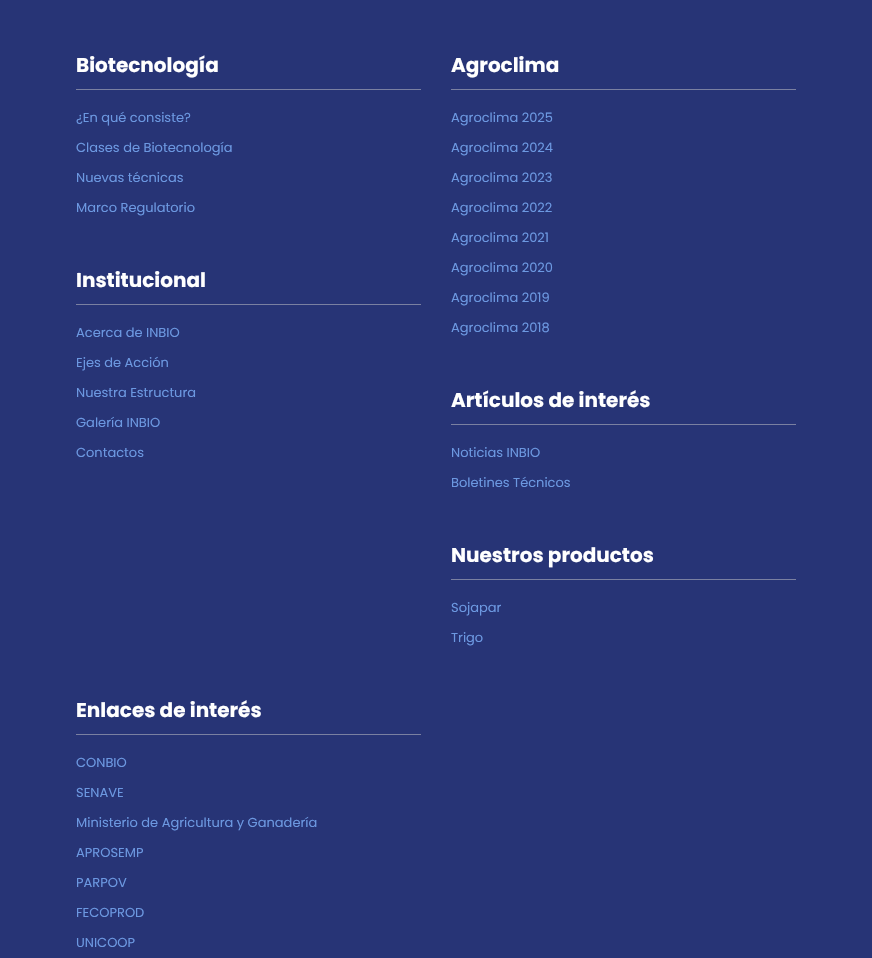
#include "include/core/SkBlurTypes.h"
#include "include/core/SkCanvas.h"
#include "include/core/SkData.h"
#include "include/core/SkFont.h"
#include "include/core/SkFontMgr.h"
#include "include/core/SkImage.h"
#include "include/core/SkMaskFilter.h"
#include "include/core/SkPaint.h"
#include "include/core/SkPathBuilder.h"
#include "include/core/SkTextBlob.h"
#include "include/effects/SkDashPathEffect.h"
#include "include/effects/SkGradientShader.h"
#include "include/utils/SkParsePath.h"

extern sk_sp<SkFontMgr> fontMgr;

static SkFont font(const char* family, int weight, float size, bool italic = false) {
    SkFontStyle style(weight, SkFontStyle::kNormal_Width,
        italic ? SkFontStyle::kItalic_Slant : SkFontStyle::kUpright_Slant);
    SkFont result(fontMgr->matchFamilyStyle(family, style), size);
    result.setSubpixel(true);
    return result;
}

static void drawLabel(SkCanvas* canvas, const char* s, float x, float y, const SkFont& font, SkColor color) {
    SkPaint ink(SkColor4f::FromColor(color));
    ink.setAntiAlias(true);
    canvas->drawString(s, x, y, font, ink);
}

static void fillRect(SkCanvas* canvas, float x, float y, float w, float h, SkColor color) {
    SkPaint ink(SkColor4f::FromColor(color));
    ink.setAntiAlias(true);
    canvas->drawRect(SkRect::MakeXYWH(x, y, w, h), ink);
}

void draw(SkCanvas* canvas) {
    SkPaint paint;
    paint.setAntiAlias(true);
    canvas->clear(0xFF273476);
    fillRect(canvas, 76, 89, 345, 1, 0xFF7A80A1);
    SkFont font1 = font("Poppins", 700, 20);
    drawLabel(canvas, "Biotecnología", 76, 72, font1, 0xFFFFFFFF);
    SkFont font2 = font("Poppins", 400, 13);
    drawLabel(canvas, "¿En qué consiste?", 76, 122, font2, 0xFF6C98E1);
    drawLabel(canvas, "Clases de Biotecnología", 76, 152, font2, 0xFF6C98E1);
    drawLabel(canvas, "Nuevas técnicas", 76, 182, font2, 0xFF6C98E1);
    drawLabel(canvas, "Marco Regulatorio", 76, 212, font2, 0xFF6C98E1);
    fillRect(canvas, 76, 304, 345, 1, 0xFF7A80A1);
    drawLabel(canvas, "Institucional", 76, 287, font1, 0xFFFFFFFF);
    drawLabel(canvas, "Acerca de INBIO", 76, 337, font2, 0xFF6C98E1);
    drawLabel(canvas, "Ejes de Acción", 76, 367, font2, 0xFF6C98E1);
    drawLabel(canvas, "Nuestra Estructura", 76, 397, font2, 0xFF6C98E1);
    drawLabel(canvas, "Galería INBIO", 76, 427, font2, 0xFF6C98E1);
    drawLabel(canvas, "Contactos", 76, 457, font2, 0xFF6C98E1);
    fillRect(canvas, 451, 89, 345, 1, 0xFF7A80A1);
    drawLabel(canvas, "Agroclima", 451, 72, font1, 0xFFFFFFFF);
    drawLabel(canvas, "Agroclima 2025", 451, 122, font2, 0xFF6C98E1);
    drawLabel(canvas, "Agroclima 2024", 451, 152, font2, 0xFF6C98E1);
    drawLabel(canvas, "Agroclima 2023", 451, 182, font2, 0xFF6C98E1);
    drawLabel(canvas, "Agroclima 2022", 451, 212, font2, 0xFF6C98E1);
    drawLabel(canvas, "Agroclima 2021", 451, 242, font2, 0xFF6C98E1);
    drawLabel(canvas, "Agroclima 2020", 451, 272, font2, 0xFF6C98E1);
    drawLabel(canvas, "Agroclima 2019", 451, 302, font2, 0xFF6C98E1);
    drawLabel(canvas, "Agroclima 2018", 451, 332, font2, 0xFF6C98E1);
    fillRect(canvas, 451, 424, 345, 1, 0xFF7A80A1);
    drawLabel(canvas, "Artículos de interés", 451, 407, font1, 0xFFFFFFFF);
    drawLabel(canvas, "Noticias INBIO", 451, 457, font2, 0xFF6C98E1);
    drawLabel(canvas, "Boletines Técnicos", 451, 487, font2, 0xFF6C98E1);
    fillRect(canvas, 451, 579, 345, 1, 0xFF7A80A1);
    drawLabel(canvas, "Nuestros productos", 451, 562, font1, 0xFFFFFFFF);
    drawLabel(canvas, "Sojapar", 451, 612, font2, 0xFF6C98E1);
    drawLabel(canvas, "Trigo", 451, 642, font2, 0xFF6C98E1);
    fillRect(canvas, 76, 734, 345, 1, 0xFF7A80A1);
    drawLabel(canvas, "Enlaces de interés", 76, 717, font1, 0xFFFFFFFF);
    drawLabel(canvas, "CONBIO", 76, 767, font2, 0xFF6C98E1);
    drawLabel(canvas, "SENAVE", 76, 797, font2, 0xFF6C98E1);
    drawLabel(canvas, "Ministerio de Agricultura y Ganadería", 76, 827, font2, 0xFF6C98E1);
    drawLabel(canvas, "APROSEMP", 76, 857, font2, 0xFF6C98E1);
    drawLabel(canvas, "PARPOV", 76, 887, font2, 0xFF6C98E1);
    drawLabel(canvas, "FECOPROD", 76, 917, font2, 0xFF6C98E1);
    drawLabel(canvas, "UNICOOP", 76, 947, font2, 0xFF6C98E1);
}
